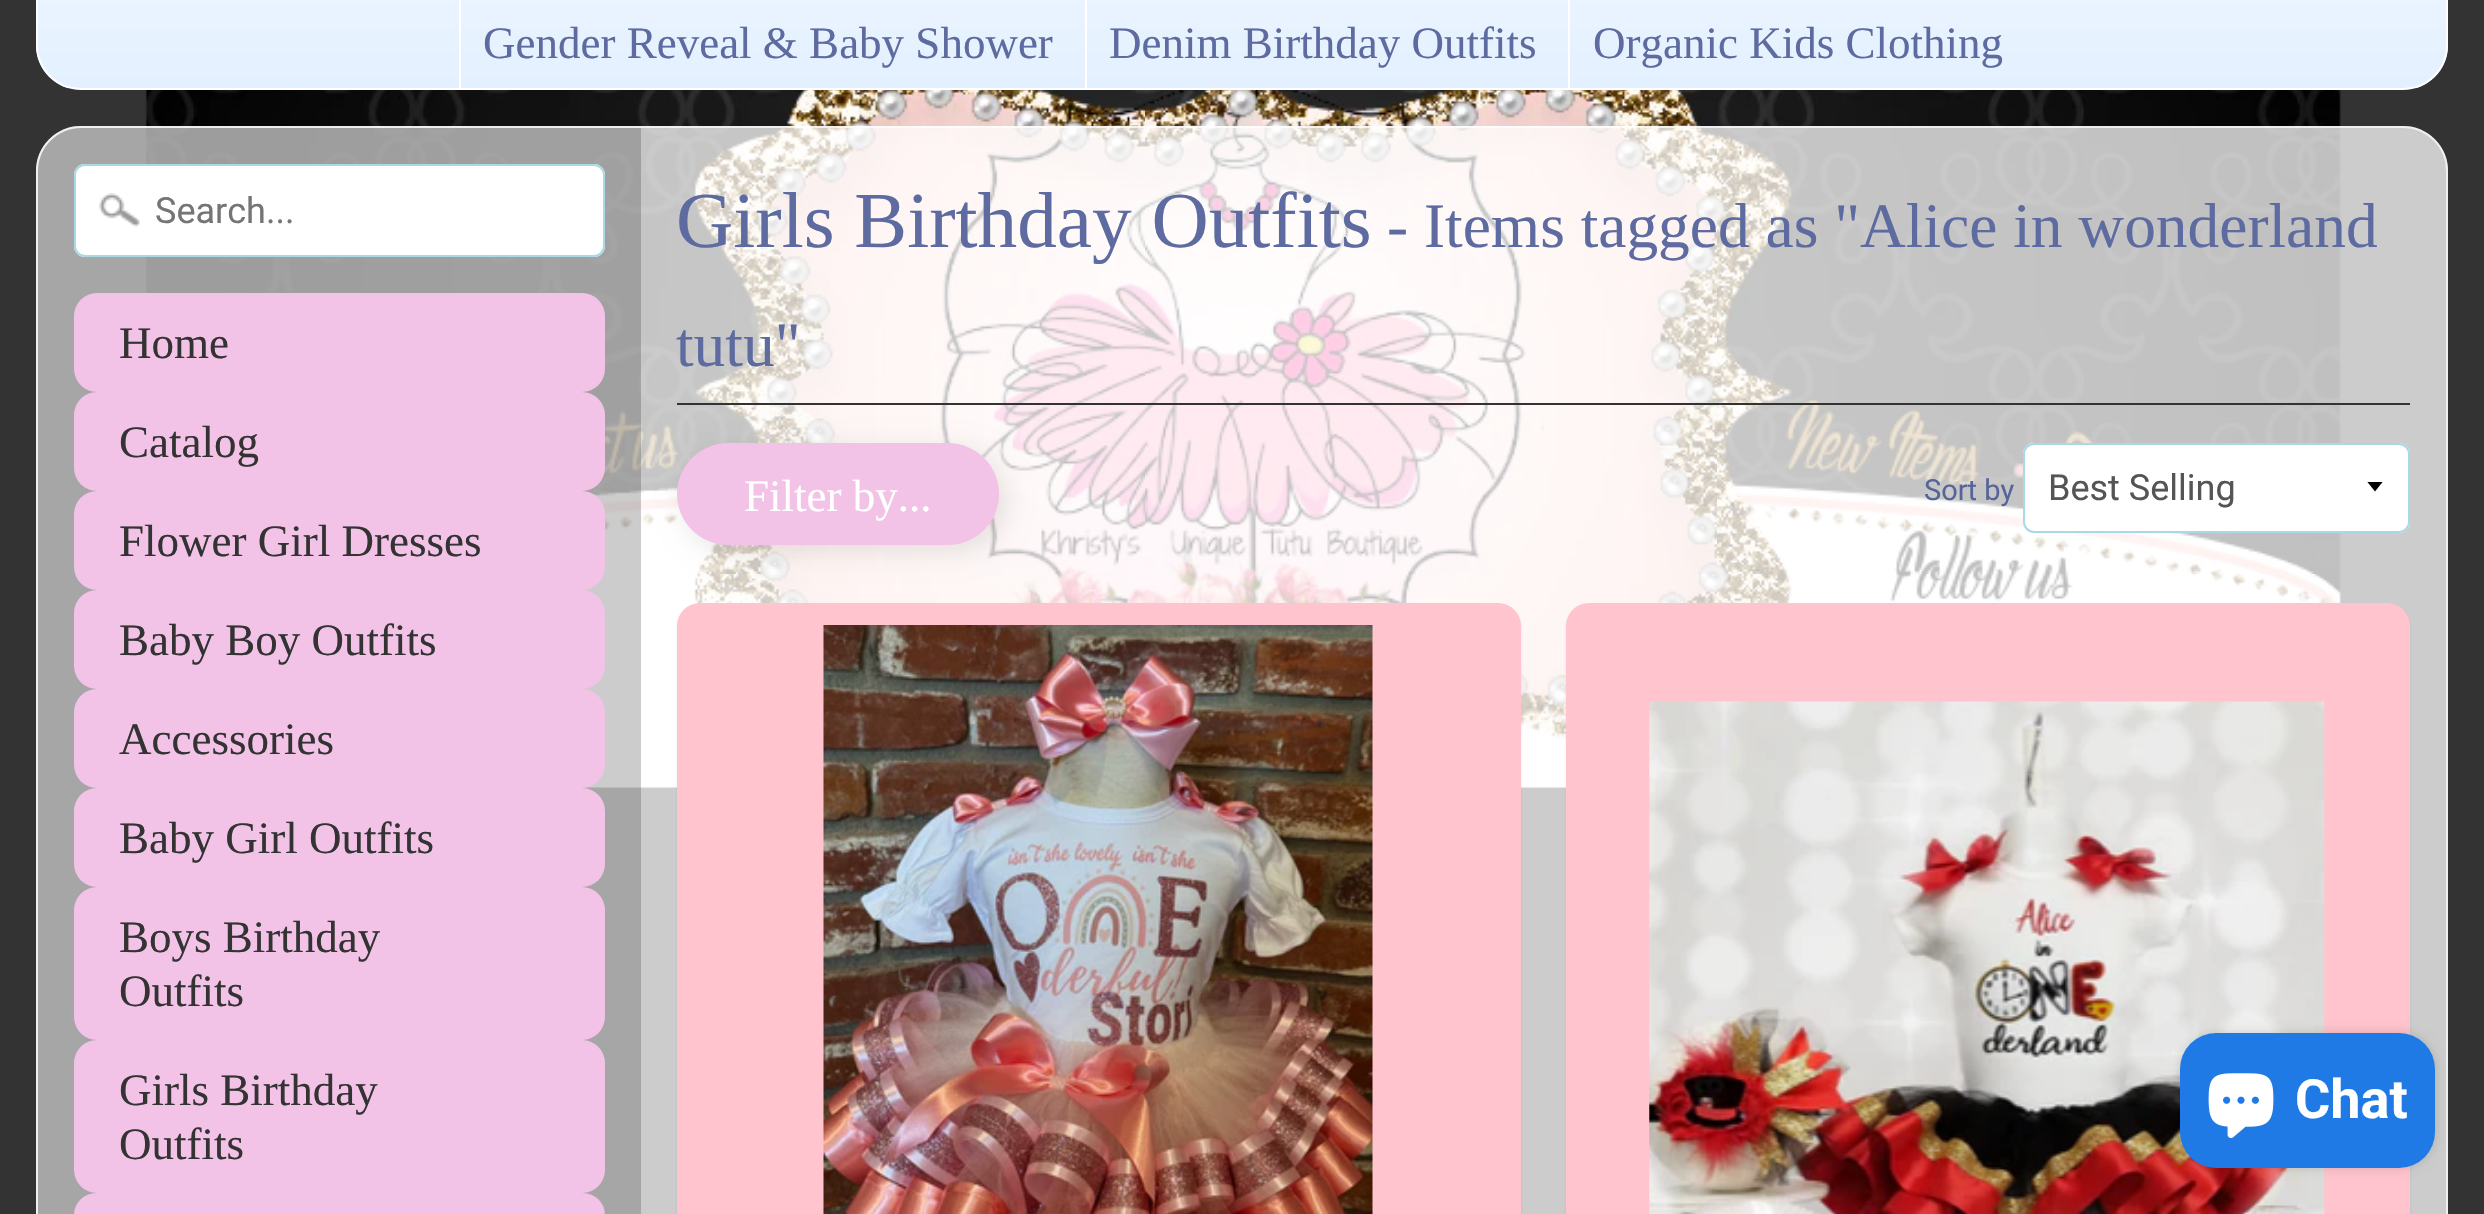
#include "include/core/SkBlurTypes.h"
#include "include/core/SkCanvas.h"
#include "include/core/SkData.h"
#include "include/core/SkFont.h"
#include "include/core/SkFontMgr.h"
#include "include/core/SkImage.h"
#include "include/core/SkMaskFilter.h"
#include "include/core/SkPaint.h"
#include "include/core/SkPathBuilder.h"
#include "include/core/SkTextBlob.h"
#include "include/effects/SkDashPathEffect.h"
#include "include/effects/SkGradientShader.h"
#include "include/utils/SkParsePath.h"

extern sk_sp<SkFontMgr> fontMgr;

static SkFont font(const char* family, int weight, float size, bool italic = false) {
    SkFontStyle style(weight, SkFontStyle::kNormal_Width,
        italic ? SkFontStyle::kItalic_Slant : SkFontStyle::kUpright_Slant);
    SkFont result(fontMgr->matchFamilyStyle(family, style), size);
    result.setSubpixel(true);
    return result;
}

static void drawLabel(SkCanvas* canvas, const char* s, float x, float y, const SkFont& font, SkColor color) {
    SkPaint ink(SkColor4f::FromColor(color));
    ink.setAntiAlias(true);
    canvas->drawString(s, x, y, font, ink);
}

static void fillRect(SkCanvas* canvas, float x, float y, float w, float h, SkColor color) {
    SkPaint ink(SkColor4f::FromColor(color));
    ink.setAntiAlias(true);
    canvas->drawRect(SkRect::MakeXYWH(x, y, w, h), ink);
}

static void fillRRect(SkCanvas* canvas, float x, float y, float w, float h, float radius, SkColor color) {
    SkPaint ink(SkColor4f::FromColor(color));
    ink.setAntiAlias(true);
    canvas->drawRoundRect(SkRect::MakeXYWH(x, y, w, h), radius, radius, ink);
}

static void drawPhoto(SkCanvas* canvas, const char* path, float x, float y, float w, float h) {
    auto image = SkImages::DeferredFromEncodedData(SkData::MakeFromFileName(path));
    canvas->drawImageRect(image, SkRect::MakeXYWH(x, y, w, h), SkSamplingOptions());
}

static SkPath parsePath(const char* data, bool evenOdd = false) {
    SkPath result = *SkParsePath::FromSVGString(data);
    if (evenOdd) result.setFillType(SkPathFillType::kEvenOdd);
    return result;
}

void draw(SkCanvas* canvas) {
    SkPaint paint;
    paint.setAntiAlias(true);
    canvas->clear(0xFF333333);
    drawPhoto(canvas, "assets/img1.png", 145, 90, 2196, 699);
    canvas->save();
    canvas->clipPath(parsePath("M81-274H2403C2428-274 2448-254 2448-229V45C2448 70 2428 90 2403 90H81C56 90 36 70 36 45V-229C36-254 56-274 81-274Z"), true);
    {
        const SkColor colors[] = {0xFFFFFFFF, 0xFFE3F0FF};
        const float stops[] = {0, 1};
        const SkPoint ends[] = {{1242, -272}, {1242, 88}};
        paint.setShader(SkGradientShader::MakeLinear(ends, colors, stops, 2, SkTileMode::kClamp));
        paint.setAlpha(255);
    }
    canvas->drawRect(SkRect::MakeXYWH(36, 0, 2412, 88), paint);
    canvas->restore();
    paint.setStroke(true);
    paint.setStrokeWidth(2);
    paint.setShader(nullptr);
    paint.setColor(0xFFFFFFFF);
    canvas->drawRoundRect(SkRect::MakeXYWH(37, -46, 2410, 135), 44, 44, paint);
    fillRect(canvas, 459, 0, 2, 88, 0xFFFFFFFF);
    SkFont font1 = font("Liberation Serif", 400, 45);
    drawLabel(canvas, "Gender Reveal & Baby Shower", 483, 58, font1, 0xFF5D6BA0);
    fillRect(canvas, 1085, 0, 2, 88, 0xFFFFFFFF);
    drawLabel(canvas, "Denim Birthday Outfits", 1109, 58, font1, 0xFF5D6BA0);
    fillRect(canvas, 1568, 0, 2, 88, 0xFFFFFFFF);
    drawLabel(canvas, "Organic Kids Clothing", 1593, 58, font1, 0xFF5D6BA0);
    fillRRect(canvas, 36, 126, 2412, 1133, 45, 0xBFFFFFFF);
    paint.setColor(0xB3FFFFFF);
    canvas->drawRoundRect(SkRect::MakeXYWH(37, 127, 2410, 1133), 44, 44, paint);
    paint.setStroke(false);
    paint.setColor(0x40333333);
    canvas->drawPath(parsePath("M81 128H641V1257H81C57.5 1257 38 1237.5 38 1214V171C38 147.5 57.5 128 81 128Z"), paint);
    fillRRect(canvas, 74, 164, 531, 93, 11, 0xFFFFFFFF);
    drawPhoto(canvas, "assets/img2.png", 99, 193, 41, 34);
    paint.setStroke(true);
    paint.setColor(0xFFAAD9E6);
    canvas->drawRoundRect(SkRect::MakeXYWH(75, 165, 529, 91), 10, 10, paint);
    SkFont font2 = font("Roboto", 400, 36);
    drawLabel(canvas, "Search...", 155, 223, font2, 0xFF757575);
    fillRRect(canvas, 74, 293, 531, 99, 23, 0xFFF2C2E7);
    drawLabel(canvas, "Home", 119, 358, font1, 0xFF333333);
    fillRRect(canvas, 74, 392, 531, 99, 23, 0xFFF2C2E7);
    drawLabel(canvas, "Catalog", 119, 457, font1, 0xFF333333);
    fillRRect(canvas, 74, 491, 531, 99, 23, 0xFFF2C2E7);
    drawLabel(canvas, "Flower Girl Dresses", 119, 556, font1, 0xFF333333);
    fillRRect(canvas, 74, 590, 531, 99, 23, 0xFFF2C2E7);
    drawLabel(canvas, "Baby Boy Outfits", 119, 655, font1, 0xFF333333);
    fillRRect(canvas, 74, 689, 531, 99, 23, 0xFFF2C2E7);
    drawLabel(canvas, "Accessories", 119, 754, font1, 0xFF333333);
    fillRRect(canvas, 74, 788, 531, 99, 23, 0xFFF2C2E7);
    drawLabel(canvas, "Baby Girl Outfits", 119, 853, font1, 0xFF333333);
    fillRRect(canvas, 74, 887, 531, 153, 23, 0xFFF2C2E7);
    drawLabel(canvas, "Boys Birthday", 119, 952, font1, 0xFF333333);
    drawLabel(canvas, "Outfits", 119, 1006, font1, 0xFF333333);
    fillRRect(canvas, 74, 1040, 531, 153, 23, 0xFFF2C2E7);
    drawLabel(canvas, "Girls Birthday", 119, 1105, font1, 0xFF333333);
    drawLabel(canvas, "Outfits", 119, 1159, font1, 0xFF333333);
    fillRRect(canvas, 74, 1193, 531, 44, 23, 0xFFF2C2E7);
    fillRect(canvas, 677, 403, 1733, 2, 0xFF333333);
    SkFont font3 = font("Liberation Serif", 400, 79.25f);
    drawLabel(canvas, "Girls Birthday Outfits", 676, 247, font3, 0xFF5D6BA0);
    SkFont font4 = font("Liberation Serif", 400, 63.4f);
    drawLabel(canvas, "- Items tagged as \"Alice in wonderland", 1387, 247, font4, 0xFF5D6BA0);
    drawLabel(canvas, "tutu\"", 676, 366, font4, 0xFF5D6BA0);
    paint.setStroke(false);
    paint.setColor(0x1A000000);
    paint.setMaskFilter(SkMaskFilter::MakeBlur(kNormal_SkBlurStyle, 13.5f));
    canvas->drawRoundRect(SkRect::MakeXYWH(684, 450, 322, 101), 50.5f, 50.5f, paint);
    paint.setMaskFilter(nullptr);
    fillRRect(canvas, 677, 443, 322, 102, 51, 0xFFF2C2E7);
    drawLabel(canvas, "Filter by...", 744, 511, font1, 0xFFFFFFFF);
    SkFont font5 = font("Roboto", 400, 29);
    drawLabel(canvas, "Sort by", 1924, 500, font5, 0xFF56649A);
    fillRRect(canvas, 2023, 443, 387, 90, 11, 0xFFFFFFFF);
    canvas->save();
    canvas->clipRect(SkRect::MakeXYWH(2367, 482, 18, 11));
    paint.setColor(0xFF000000);
    canvas->drawPath(parsePath("M2367 481.5L2375 491.5L2383 481.5Z"), paint);
    canvas->restore();
    paint.setStroke(true);
    paint.setColor(0xFFAAD9E6);
    canvas->drawRoundRect(SkRect::MakeXYWH(2024, 444, 385, 88), 10, 10, paint);
    drawLabel(canvas, "Best Selling", 2048, 500, font2, 0xFF555555);
    paint.setStroke(false);
    paint.setColor(0x1A000000);
    paint.setMaskFilter(SkMaskFilter::MakeBlur(kNormal_SkBlurStyle, 1));
    canvas->drawRoundRect(SkRect::MakeXYWH(677, 605, 844, 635), 23, 23, paint);
    paint.setMaskFilter(nullptr);
    fillRRect(canvas, 677, 603, 844, 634, 23, 0xFFFFC4CE);
    drawPhoto(canvas, "assets/img3.png", 823, 625, 550, 589);
    paint.setMaskFilter(SkMaskFilter::MakeBlur(kNormal_SkBlurStyle, 1));
    canvas->drawRoundRect(SkRect::MakeXYWH(1566, 605, 844, 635), 23, 23, paint);
    paint.setMaskFilter(nullptr);
    fillRRect(canvas, 1566, 603, 844, 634, 23, 0xFFFFC4CE);
    drawPhoto(canvas, "assets/img4.png", 1649, 701, 676, 513);
    paint.setColor(0x26000000);
    paint.setMaskFilter(SkMaskFilter::MakeBlur(kNormal_SkBlurStyle, 5.5f));
    canvas->drawRoundRect(SkRect::MakeXYWH(2180, 1033, 255, 135), 36, 36, paint);
    paint.setMaskFilter(nullptr);
    fillRRect(canvas, 2180, 1033, 255, 135, 36, 0xFF207AE5);
    drawPhoto(canvas, "assets/img5.png", 2208, 1073, 66, 65);
    SkFont font6 = font("Roboto", 700, 54);
    drawLabel(canvas, "Chat", 2295, 1118, font6, 0xFFFFFFFF);
}
